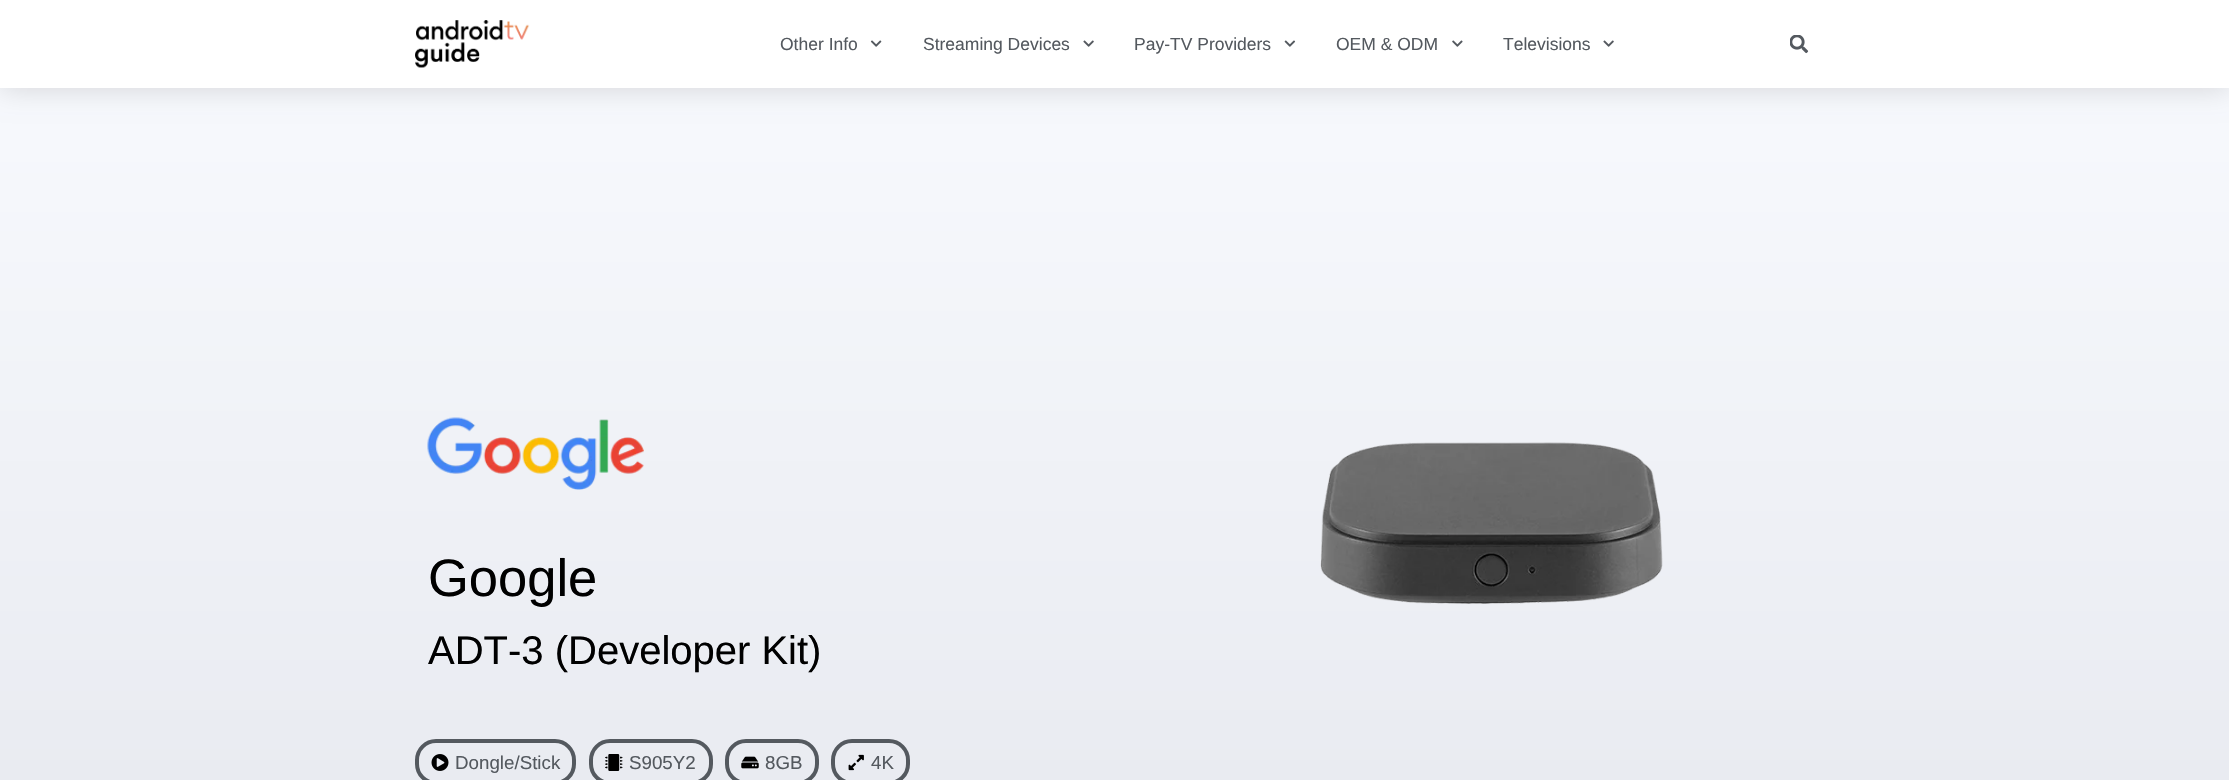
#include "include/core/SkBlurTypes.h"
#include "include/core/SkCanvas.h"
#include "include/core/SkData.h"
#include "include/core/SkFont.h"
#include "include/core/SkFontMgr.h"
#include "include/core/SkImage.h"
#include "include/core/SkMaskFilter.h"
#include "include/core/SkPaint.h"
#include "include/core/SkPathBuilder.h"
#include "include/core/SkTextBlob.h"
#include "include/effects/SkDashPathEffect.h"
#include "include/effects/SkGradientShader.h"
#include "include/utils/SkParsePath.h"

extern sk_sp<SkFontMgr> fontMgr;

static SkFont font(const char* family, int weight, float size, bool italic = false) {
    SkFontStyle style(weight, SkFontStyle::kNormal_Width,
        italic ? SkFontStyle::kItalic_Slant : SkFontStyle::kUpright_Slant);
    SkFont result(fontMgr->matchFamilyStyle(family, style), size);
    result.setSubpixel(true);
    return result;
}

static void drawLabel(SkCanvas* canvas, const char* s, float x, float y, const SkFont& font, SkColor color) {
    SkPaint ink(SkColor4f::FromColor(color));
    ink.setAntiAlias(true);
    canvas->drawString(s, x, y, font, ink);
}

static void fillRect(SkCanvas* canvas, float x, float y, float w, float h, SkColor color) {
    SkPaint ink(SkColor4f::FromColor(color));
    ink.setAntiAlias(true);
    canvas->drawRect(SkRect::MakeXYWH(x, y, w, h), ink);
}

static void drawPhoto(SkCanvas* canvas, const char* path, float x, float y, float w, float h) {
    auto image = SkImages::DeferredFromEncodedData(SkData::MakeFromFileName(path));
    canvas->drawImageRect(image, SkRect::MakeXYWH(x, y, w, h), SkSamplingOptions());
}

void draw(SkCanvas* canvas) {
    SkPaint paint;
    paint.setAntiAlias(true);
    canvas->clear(0xFFFFFFFF);
    {
        const SkColor colors[] = {0xFFF7F9FD, 0xFFE8EAF0};
        const float stops[] = {0, 1};
        const SkPoint ends[] = {{1115, 87}, {1115, 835}};
        paint.setShader(SkGradientShader::MakeLinear(ends, colors, stops, 2, SkTileMode::kClamp));
        paint.setAlpha(255);
    }
    canvas->drawRect(SkRect::MakeXYWH(0, 88, 2229, 692), paint);
    paint.setShader(nullptr);
    paint.setColor(0x26000000);
    paint.setMaskFilter(SkMaskFilter::MakeBlur(kNormal_SkBlurStyle, 15));
    canvas->drawRect(SkRect::MakeXYWH(0, 0, 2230, 88), paint);
    paint.setMaskFilter(nullptr);
    fillRect(canvas, 0, 0, 2229, 88, 0xFFFFFFFF);
    drawPhoto(canvas, "assets/img1.png", 415, 20, 115, 48);
    SkFont font1 = font("Liberation Sans", 400, 17.5f);
    drawLabel(canvas, "Other Info", 780, 50, font1, 0xFF54595F);
    drawPhoto(canvas, "assets/img2.png", 870, 40, 12, 7);
    drawLabel(canvas, "Streaming Devices", 923, 50, font1, 0xFF54595F);
    drawPhoto(canvas, "assets/img3.png", 1083, 40, 11, 7);
    drawLabel(canvas, "Pay-TV Providers", 1134, 50, font1, 0xFF54595F);
    drawPhoto(canvas, "assets/img4.png", 1284, 40, 12, 7);
    drawLabel(canvas, "OEM & ODM", 1336, 50, font1, 0xFF54595F);
    drawPhoto(canvas, "assets/img5.png", 1452, 40, 11, 7);
    drawLabel(canvas, "Televisions", 1503, 50, font1, 0xFF54595F);
    drawPhoto(canvas, "assets/img3.png", 1603, 40, 11, 7);
    drawPhoto(canvas, "assets/img6.png", 1790, 35, 19, 19);
    drawPhoto(canvas, "assets/img7.png", 427, 417, 217, 73);
    SkFont font2 = font("Liberation Sans", 400, 52.5f);
    drawLabel(canvas, "Google", 428, 596, font2, 0xFF000000);
    SkFont font3 = font("Liberation Sans", 400, 40);
    drawLabel(canvas, "ADT-3 (Developer Kit)", 428, 664, font3, 0xFF000000);
    drawPhoto(canvas, "assets/img8.png", 1320, 442, 343, 162);
    paint.setStroke(true);
    paint.setStrokeWidth(4);
    paint.setColor(0xFF54595F);
    canvas->drawRoundRect(SkRect::MakeXYWH(417, 741, 157, 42), 19, 19, paint);
    drawPhoto(canvas, "assets/img9.png", 431, 754, 18, 17);
    SkFont font4 = font("Liberation Sans", 400, 18.75f);
    drawLabel(canvas, "Dongle/Stick", 455, 769, font4, 0xFF54595F);
    canvas->drawRoundRect(SkRect::MakeXYWH(591, 741, 120, 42), 19, 19, paint);
    drawPhoto(canvas, "assets/img10.png", 605, 754, 18, 17);
    drawLabel(canvas, "S905Y2", 629, 769, font4, 0xFF54595F);
    canvas->drawRoundRect(SkRect::MakeXYWH(727, 741, 90, 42), 19, 19, paint);
    drawPhoto(canvas, "assets/img11.png", 741, 756, 18, 13);
    drawLabel(canvas, "8GB", 765, 769, font4, 0xFF54595F);
    canvas->drawRoundRect(SkRect::MakeXYWH(833, 741, 75, 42), 19, 19, paint);
    drawPhoto(canvas, "assets/img12.png", 848, 754, 16, 17);
    drawLabel(canvas, "4K", 871, 769, font4, 0xFF54595F);
}
